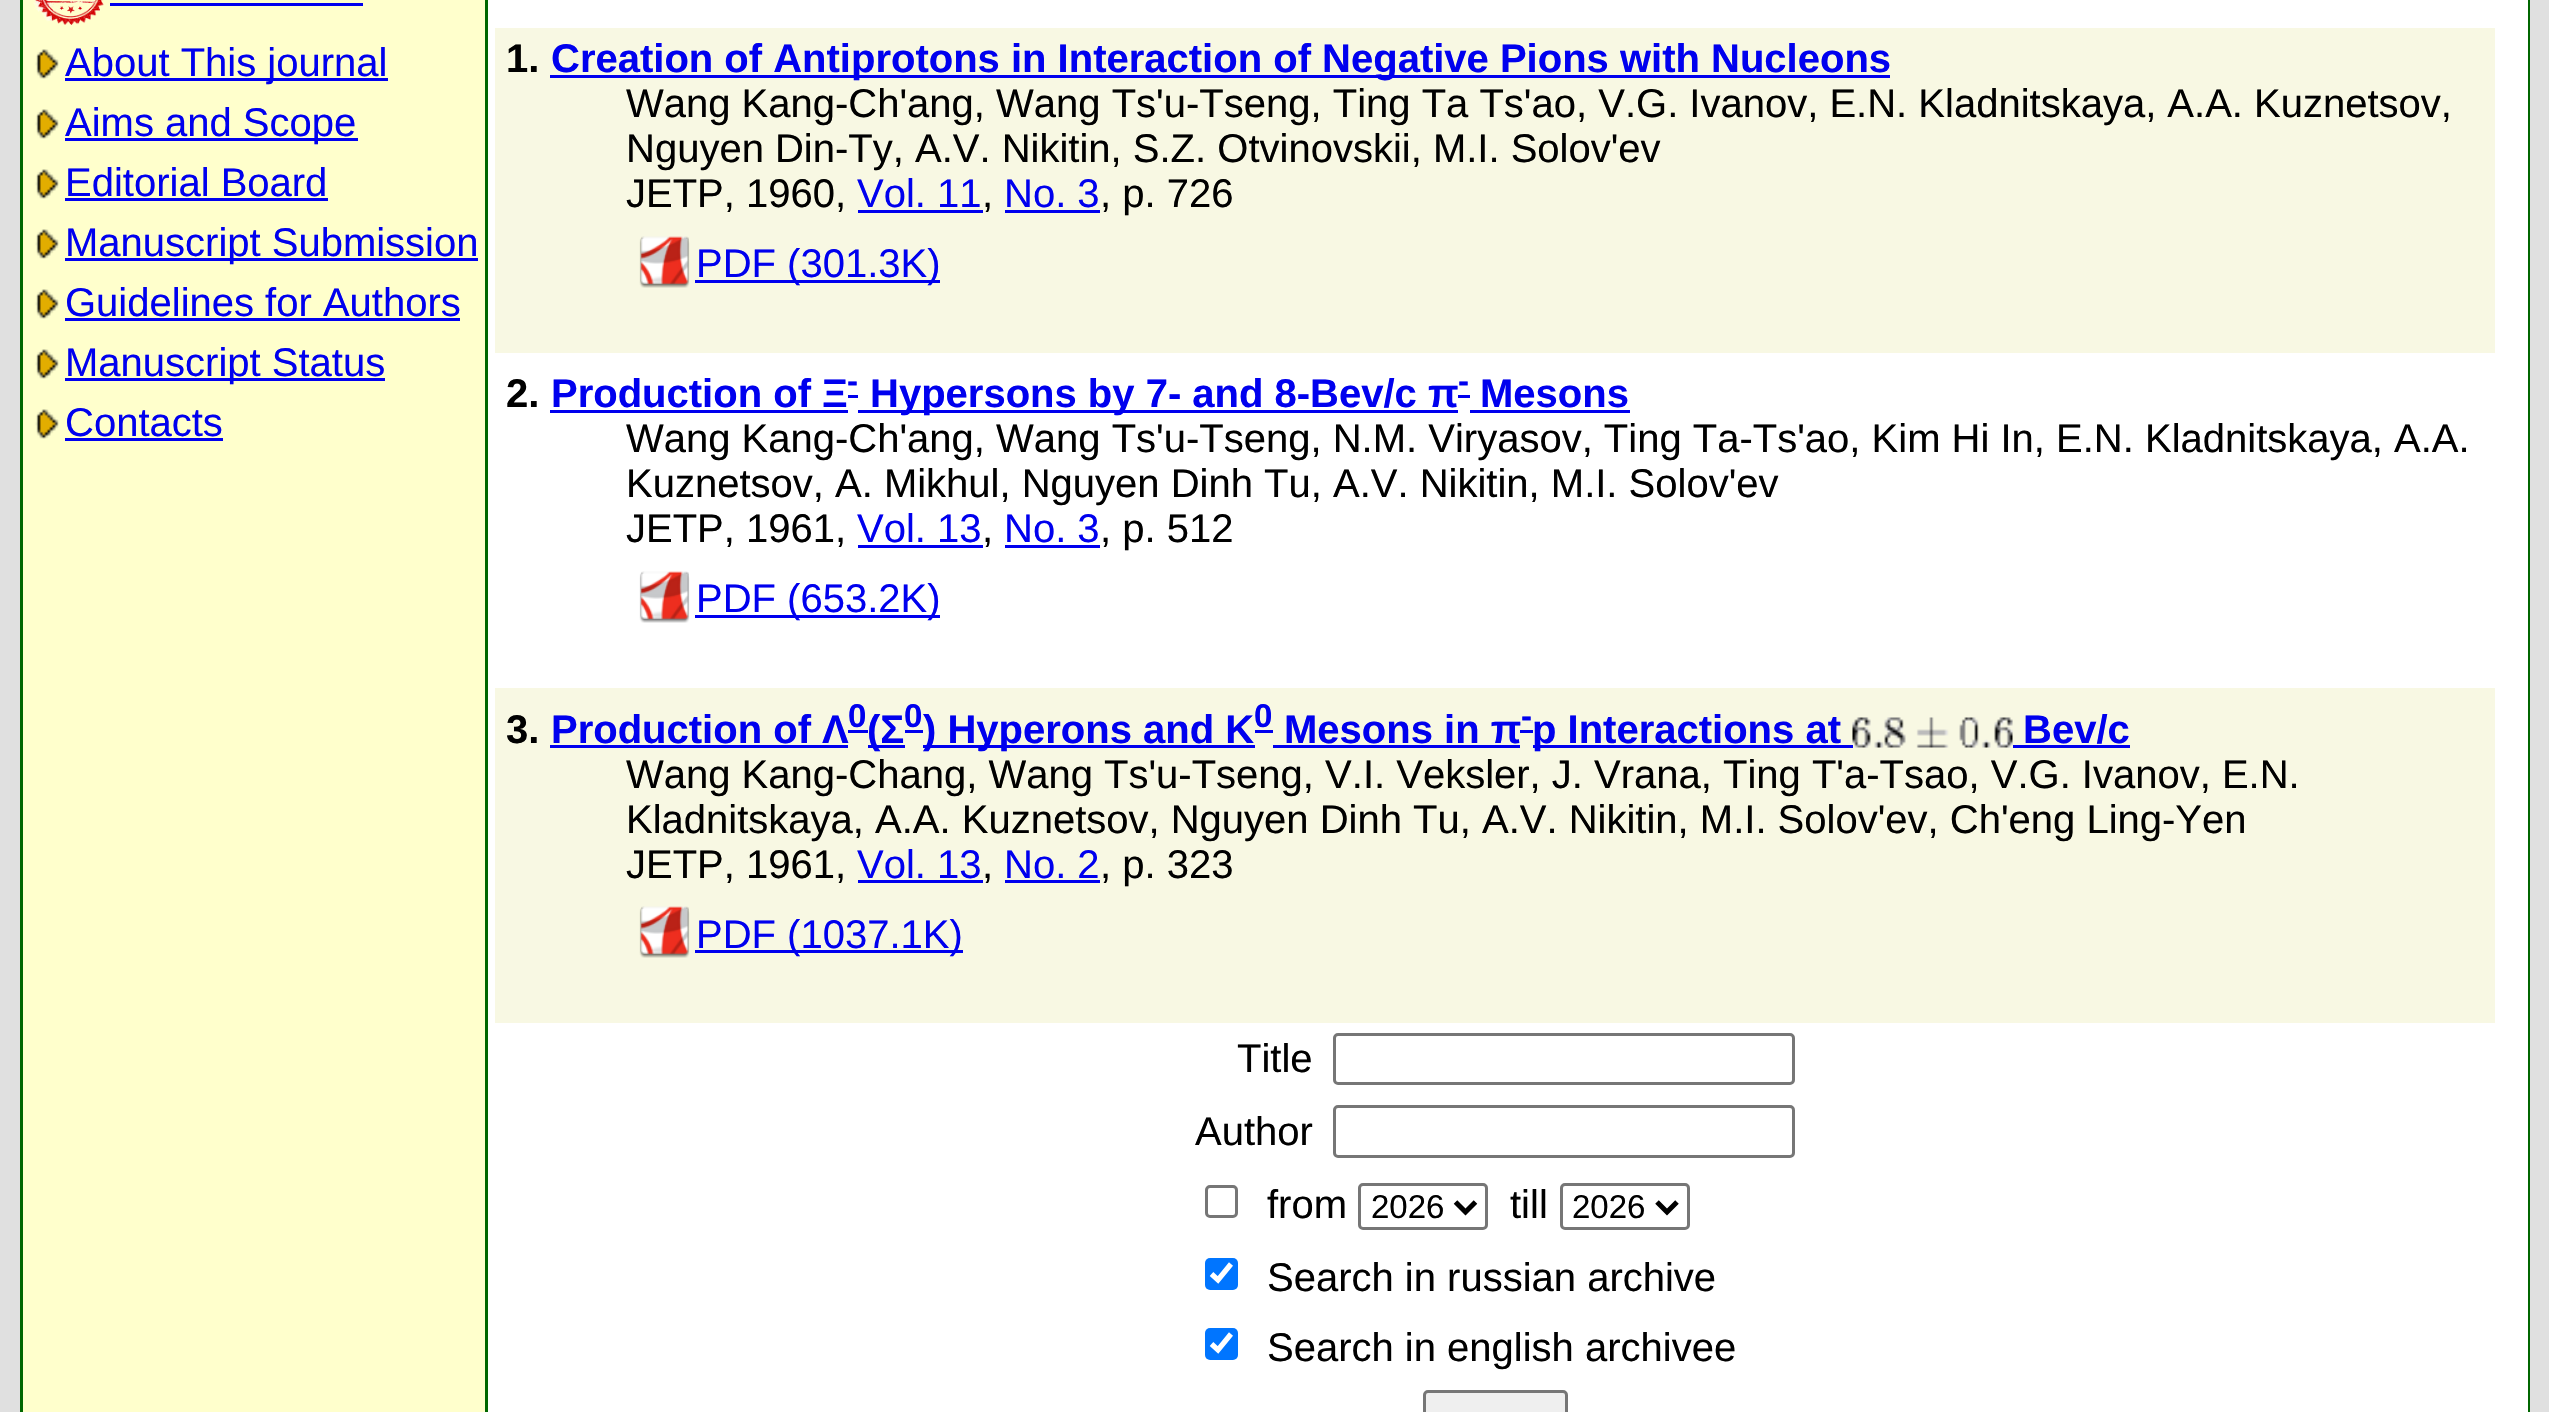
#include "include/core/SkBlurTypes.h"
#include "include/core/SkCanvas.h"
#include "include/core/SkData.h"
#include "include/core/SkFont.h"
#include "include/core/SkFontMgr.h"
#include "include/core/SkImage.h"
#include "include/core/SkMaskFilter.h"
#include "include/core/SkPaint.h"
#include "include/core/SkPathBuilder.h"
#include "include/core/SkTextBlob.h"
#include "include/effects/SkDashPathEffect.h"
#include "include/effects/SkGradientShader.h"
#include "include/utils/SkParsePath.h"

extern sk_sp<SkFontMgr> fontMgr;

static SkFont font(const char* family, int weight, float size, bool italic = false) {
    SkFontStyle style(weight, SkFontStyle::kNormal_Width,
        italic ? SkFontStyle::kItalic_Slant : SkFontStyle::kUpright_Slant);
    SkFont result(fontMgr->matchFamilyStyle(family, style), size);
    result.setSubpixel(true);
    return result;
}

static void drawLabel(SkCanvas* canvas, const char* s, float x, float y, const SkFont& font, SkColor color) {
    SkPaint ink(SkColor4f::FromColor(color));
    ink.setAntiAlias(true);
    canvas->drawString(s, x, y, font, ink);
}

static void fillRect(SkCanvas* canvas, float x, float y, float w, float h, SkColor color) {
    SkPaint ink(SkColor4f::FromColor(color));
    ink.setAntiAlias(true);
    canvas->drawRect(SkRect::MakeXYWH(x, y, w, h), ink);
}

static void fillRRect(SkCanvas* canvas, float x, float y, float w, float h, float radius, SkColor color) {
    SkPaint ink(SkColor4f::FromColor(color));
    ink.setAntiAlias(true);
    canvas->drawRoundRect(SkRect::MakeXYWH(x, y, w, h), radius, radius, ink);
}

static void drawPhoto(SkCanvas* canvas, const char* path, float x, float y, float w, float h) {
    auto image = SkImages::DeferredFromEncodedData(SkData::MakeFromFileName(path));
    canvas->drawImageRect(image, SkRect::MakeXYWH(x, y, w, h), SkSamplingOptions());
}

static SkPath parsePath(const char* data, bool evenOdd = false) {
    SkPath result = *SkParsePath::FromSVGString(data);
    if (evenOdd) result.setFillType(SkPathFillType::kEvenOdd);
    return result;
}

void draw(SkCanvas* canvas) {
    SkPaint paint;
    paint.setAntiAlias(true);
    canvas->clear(0xFFE0E0E0);
    fillRect(canvas, 20, 0, 2510, 1412, 0xFF006600);
    fillRect(canvas, 488, 0, 2040, 1412, 0xFFFFFFFF);
    fillRect(canvas, 23, 0, 462, 1412, 0xFFFFFFCC);
    drawPhoto(canvas, "assets/img1.png", 33, 0, 71, 25);
    fillRect(canvas, 110, 3, 253, 3, 0xFF0000EE);
    drawPhoto(canvas, "assets/img2.png", 35, 49, 24, 30);
    fillRect(canvas, 65, 78, 323, 3, 0xFF0000EE);
    SkFont font1 = font("Liberation Sans", 400, 40);
    drawLabel(canvas, "About This journal", 65, 76, font1, 0xFF0000EE);
    drawPhoto(canvas, "assets/img2.png", 35, 109, 24, 30);
    fillRect(canvas, 65, 138, 293, 3, 0xFF0000EE);
    drawLabel(canvas, "Aims and Scope", 65, 136, font1, 0xFF0000EE);
    drawPhoto(canvas, "assets/img2.png", 35, 169, 24, 30);
    drawLabel(canvas, "Editorial Board", 65, 196, font1, 0xFF0000EE);
    fillRect(canvas, 65, 198, 263, 3, 0xFF0000EE);
    drawPhoto(canvas, "assets/img3.png", 35, 229, 24, 30);
    fillRect(canvas, 65, 258, 413, 3, 0xFF0000EE);
    drawLabel(canvas, "Manuscript Submission", 65, 256, font1, 0xFF0000EE);
    drawPhoto(canvas, "assets/img2.png", 35, 289, 24, 30);
    drawLabel(canvas, "Guidelines for Authors", 65, 316, font1, 0xFF0000EE);
    fillRect(canvas, 65, 318, 395, 3, 0xFF0000EE);
    drawPhoto(canvas, "assets/img2.png", 35, 349, 24, 30);
    fillRect(canvas, 65, 378, 320, 3, 0xFF0000EE);
    drawLabel(canvas, "Manuscript Status", 65, 376, font1, 0xFF0000EE);
    drawPhoto(canvas, "assets/img2.png", 35, 409, 24, 30);
    drawLabel(canvas, "Contacts", 65, 436, font1, 0xFF0000EE);
    fillRect(canvas, 65, 438, 158, 3, 0xFF0000EE);
    fillRect(canvas, 495, 28, 2000, 325, 0xFFF8F8E3);
    SkFont font2 = font("Liberation Sans", 700, 40);
    drawLabel(canvas, "1.", 506, 72, font2, 0xFF000000);
    fillRect(canvas, 550, 75, 1340, 3, 0xFF0000EE);
    drawLabel(canvas, "Creation of Antiprotons in Interaction of Negative Pions with Nucleons", 551, 72, font2, 0xFF0000EE);
    drawLabel(canvas, "Wang Kang-Ch'ang, Wang Ts'u-Tseng, Ting Ta Ts'ao, V.G. Ivanov, E.N. Kladnitskaya, A.A. Kuznetsov,", 626, 117, font1, 0xFF000000);
    drawLabel(canvas, "Nguyen Din-Ty, A.V. Nikitin, S.Z. Otvinovskii, M.I. Solov'ev", 626, 162, font1, 0xFF000000);
    drawLabel(canvas, "JETP, 1960,", 626, 207, font1, 0xFF000000);
    drawLabel(canvas, "Vol. 11", 857, 207, font1, 0xFF0000EE);
    fillRect(canvas, 858, 210, 125, 3, 0xFF0000EE);
    drawLabel(canvas, ",", 982, 207, font1, 0xFF000000);
    drawLabel(canvas, "No. 3", 1004, 207, font1, 0xFF0000EE);
    fillRect(canvas, 1005, 210, 95, 3, 0xFF0000EE);
    drawLabel(canvas, ", p. 726", 1100, 207, font1, 0xFF000000);
    drawPhoto(canvas, "assets/img4.png", 639, 236, 51, 52);
    fillRect(canvas, 695, 280, 245, 3, 0xFF0000EE);
    drawLabel(canvas, "PDF (301.3K)", 696, 277, font1, 0xFF0000EE);
    drawLabel(canvas, "2.", 506, 407, font2, 0xFF000000);
    drawLabel(canvas, "Production of Ξ", 551, 407, font2, 0xFF0000EE);
    fillRect(canvas, 550, 410, 298, 3, 0xFF0000EE);
    fillRect(canvas, 848, 395, 10, 3, 0xFF0000EE);
    SkFont font3 = font("Liberation Sans", 700, 33);
    drawLabel(canvas, "-", 847, 392, font3, 0xFF0000EE);
    fillRect(canvas, 858, 410, 600, 3, 0xFF0000EE);
    drawLabel(canvas, "Hypersons by 7- and 8-Bev/c π", 870, 407, font2, 0xFF0000EE);
    fillRect(canvas, 1458, 395, 12, 3, 0xFF0000EE);
    drawLabel(canvas, "-", 1458, 392, font3, 0xFF0000EE);
    drawLabel(canvas, "Mesons", 1480, 407, font2, 0xFF0000EE);
    fillRect(canvas, 1470, 410, 160, 3, 0xFF0000EE);
    drawLabel(canvas, "Wang Kang-Ch'ang, Wang Ts'u-Tseng, N.M. Viryasov, Ting Ta-Ts'ao, Kim Hi In, E.N. Kladnitskaya, A.A.", 626, 452, font1, 0xFF000000);
    drawLabel(canvas, "Kuznetsov, A. Mikhul, Nguyen Dinh Tu, A.V. Nikitin, M.I. Solov'ev", 626, 497, font1, 0xFF000000);
    drawLabel(canvas, "JETP, 1961,", 626, 542, font1, 0xFF000000);
    drawLabel(canvas, "Vol. 13", 857, 542, font1, 0xFF0000EE);
    fillRect(canvas, 858, 545, 125, 3, 0xFF0000EE);
    drawLabel(canvas, ",", 982, 542, font1, 0xFF000000);
    drawLabel(canvas, "No. 3", 1004, 542, font1, 0xFF0000EE);
    fillRect(canvas, 1005, 545, 95, 3, 0xFF0000EE);
    drawLabel(canvas, ", p. 512", 1100, 542, font1, 0xFF000000);
    drawPhoto(canvas, "assets/img5.png", 639, 571, 51, 52);
    fillRect(canvas, 695, 615, 245, 3, 0xFF0000EE);
    drawLabel(canvas, "PDF (653.2K)", 696, 612, font1, 0xFF0000EE);
    fillRect(canvas, 495, 688, 2000, 335, 0xFFF8F8E3);
    drawLabel(canvas, "3.", 506, 743, font2, 0xFF000000);
    drawLabel(canvas, "Production of Λ", 551, 743, font2, 0xFF0000EE);
    fillRect(canvas, 550, 745, 298, 3, 0xFF0000EE);
    drawLabel(canvas, "0", 848, 727, font3, 0xFF0000EE);
    fillRect(canvas, 868, 745, 37, 3, 0xFF0000EE);
    drawLabel(canvas, "(Σ", 867, 743, font2, 0xFF0000EE);
    fillRect(canvas, 848, 730, 20, 3, 0xFF0000EE);
    drawLabel(canvas, "0", 904, 727, font3, 0xFF0000EE);
    fillRect(canvas, 905, 730, 18, 3, 0xFF0000EE);
    fillRect(canvas, 923, 745, 332, 3, 0xFF0000EE);
    drawLabel(canvas, ") Hyperons and K", 923, 743, font2, 0xFF0000EE);
    fillRect(canvas, 1255, 730, 18, 3, 0xFF0000EE);
    drawLabel(canvas, "0", 1254, 727, font3, 0xFF0000EE);
    drawLabel(canvas, "Mesons in π", 1284, 743, font2, 0xFF0000EE);
    fillRect(canvas, 1273, 745, 247, 3, 0xFF0000EE);
    drawLabel(canvas, "-", 1521, 727, font3, 0xFF0000EE);
    fillRect(canvas, 1533, 745, 320, 3, 0xFF0000EE);
    drawLabel(canvas, "p Interactions at", 1532, 743, font2, 0xFF0000EE);
    fillRect(canvas, 1520, 730, 13, 3, 0xFF0000EE);
    drawPhoto(canvas, "assets/img6.png", 1852, 717, 161, 31);
    drawLabel(canvas, "Bev/c", 2023, 743, font2, 0xFF0000EE);
    fillRect(canvas, 2013, 745, 117, 3, 0xFF0000EE);
    drawLabel(canvas, "Wang Kang-Chang, Wang Ts'u-Tseng, V.I. Veksler, J. Vrana, Ting T'a-Tsao, V.G. Ivanov, E.N.", 626, 788, font1, 0xFF000000);
    drawLabel(canvas, "Kladnitskaya, A.A. Kuznetsov, Nguyen Dinh Tu, A.V. Nikitin, M.I. Solov'ev, Ch'eng Ling-Yen", 626, 833, font1, 0xFF000000);
    drawLabel(canvas, "JETP, 1961,", 626, 878, font1, 0xFF000000);
    drawLabel(canvas, "Vol. 13", 857, 878, font1, 0xFF0000EE);
    fillRect(canvas, 858, 880, 125, 3, 0xFF0000EE);
    drawLabel(canvas, ",", 982, 878, font1, 0xFF000000);
    drawLabel(canvas, "No. 2", 1004, 878, font1, 0xFF0000EE);
    fillRect(canvas, 1005, 880, 95, 3, 0xFF0000EE);
    drawLabel(canvas, ", p. 323", 1100, 878, font1, 0xFF000000);
    drawPhoto(canvas, "assets/img7.png", 639, 906, 51, 52);
    fillRect(canvas, 695, 950, 268, 3, 0xFF0000EE);
    drawLabel(canvas, "PDF (1037.1K)", 696, 948, font1, 0xFF0000EE);
    drawLabel(canvas, "Title", 1237, 1072, font1, 0xFF000000);
    paint.setStroke(true);
    paint.setStrokeWidth(3);
    paint.setColor(0xFF767676);
    canvas->drawRoundRect(SkRect::MakeXYWH(1334.5f, 1034.5f, 459, 49), 3.5f, 3.5f, paint);
    drawLabel(canvas, "Author", 1195, 1145, font1, 0xFF000000);
    canvas->drawRoundRect(SkRect::MakeXYWH(1334.5f, 1106.5f, 459, 50), 3.5f, 3.5f, paint);
    canvas->drawRoundRect(SkRect::MakeXYWH(1206.5f, 1186.5f, 30, 30), 3.5f, 3.5f, paint);
    drawLabel(canvas, "from", 1267, 1218, font1, 0xFF000000);
    canvas->drawRoundRect(SkRect::MakeXYWH(1359.5f, 1184.5f, 127, 44), 3.5f, 3.5f, paint);
    paint.setStrokeWidth(5);
    paint.setColor(0xFF000000);
    canvas->drawPath(parsePath("M1455.5 1202L1465.5 1212L1475.5 1202"), paint);
    SkFont font4 = font("Liberation Sans", 400, 33);
    drawLabel(canvas, "2026", 1371, 1218, font4, 0xFF000000);
    drawLabel(canvas, "till", 1510, 1218, font1, 0xFF000000);
    paint.setStrokeWidth(3);
    paint.setColor(0xFF767676);
    canvas->drawRoundRect(SkRect::MakeXYWH(1561.5f, 1184.5f, 127, 44), 3.5f, 3.5f, paint);
    paint.setStrokeWidth(5);
    paint.setColor(0xFF000000);
    canvas->drawPath(parsePath("M1657 1202L1667 1212L1677 1202"), paint);
    drawLabel(canvas, "2026", 1572, 1218, font4, 0xFF000000);
    fillRRect(canvas, 1205, 1258, 33, 32, 5, 0xFF0075FF);
    paint.setStrokeWidth(5.2f);
    paint.setColor(0xFFFFFFFF);
    canvas->drawPath(parsePath("M1211.5 1274L1218 1280L1231 1264"), paint);
    drawLabel(canvas, "Search in russian archive", 1267, 1291, font1, 0xFF000000);
    fillRRect(canvas, 1205, 1328, 33, 32, 5, 0xFF0075FF);
    canvas->drawPath(parsePath("M1211.5 1344L1218 1350L1231 1334"), paint);
    drawLabel(canvas, "Search in english archiveе", 1267, 1361, font1, 0xFF000000);
    paint.setStroke(false);
    paint.setColor(0xFFEFEFEF);
    canvas->drawRoundRect(SkRect::MakeXYWH(1424.5f, 1391.5f, 142, 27), 3.5f, 3.5f, paint);
    paint.setStroke(true);
    paint.setStrokeWidth(3);
    paint.setColor(0xFF767676);
    canvas->drawRoundRect(SkRect::MakeXYWH(1424.5f, 1391.5f, 142, 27), 3.5f, 3.5f, paint);
}
